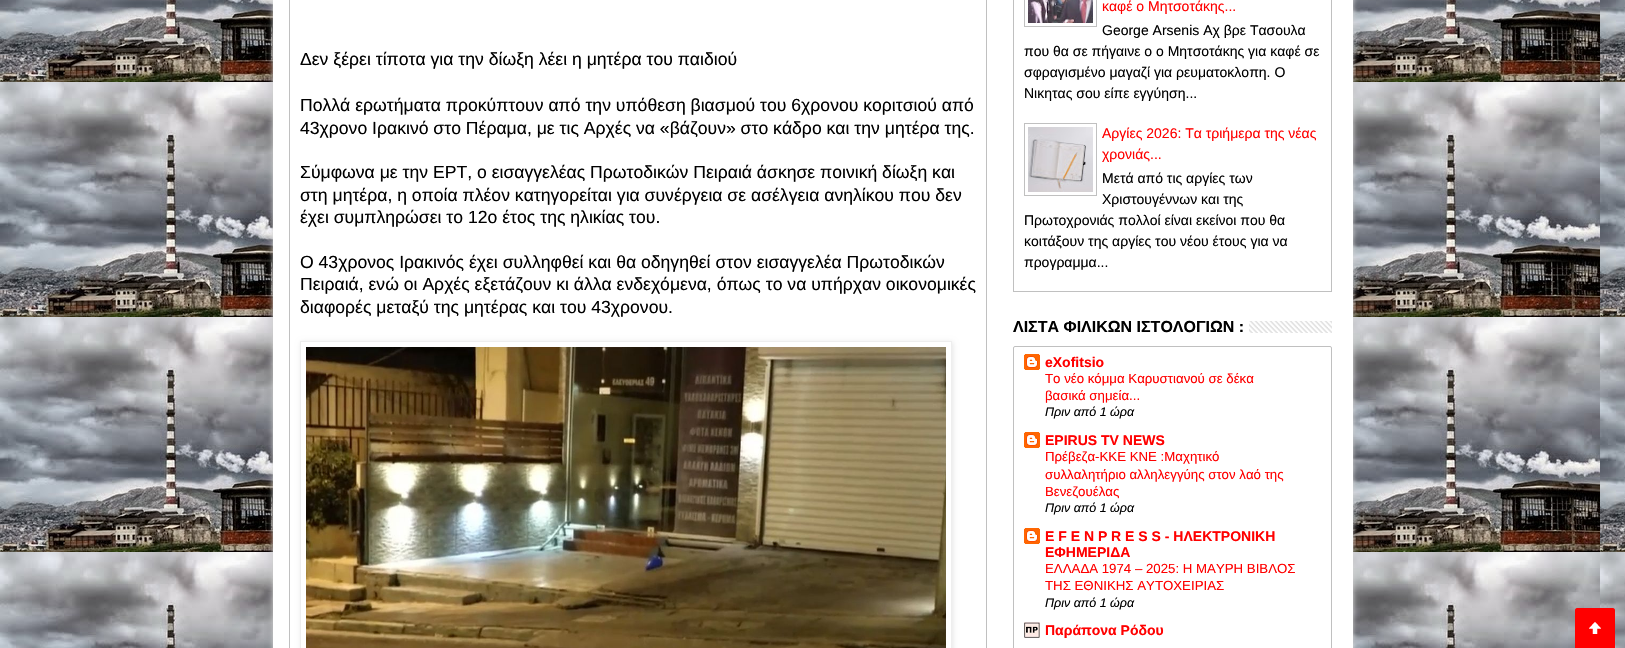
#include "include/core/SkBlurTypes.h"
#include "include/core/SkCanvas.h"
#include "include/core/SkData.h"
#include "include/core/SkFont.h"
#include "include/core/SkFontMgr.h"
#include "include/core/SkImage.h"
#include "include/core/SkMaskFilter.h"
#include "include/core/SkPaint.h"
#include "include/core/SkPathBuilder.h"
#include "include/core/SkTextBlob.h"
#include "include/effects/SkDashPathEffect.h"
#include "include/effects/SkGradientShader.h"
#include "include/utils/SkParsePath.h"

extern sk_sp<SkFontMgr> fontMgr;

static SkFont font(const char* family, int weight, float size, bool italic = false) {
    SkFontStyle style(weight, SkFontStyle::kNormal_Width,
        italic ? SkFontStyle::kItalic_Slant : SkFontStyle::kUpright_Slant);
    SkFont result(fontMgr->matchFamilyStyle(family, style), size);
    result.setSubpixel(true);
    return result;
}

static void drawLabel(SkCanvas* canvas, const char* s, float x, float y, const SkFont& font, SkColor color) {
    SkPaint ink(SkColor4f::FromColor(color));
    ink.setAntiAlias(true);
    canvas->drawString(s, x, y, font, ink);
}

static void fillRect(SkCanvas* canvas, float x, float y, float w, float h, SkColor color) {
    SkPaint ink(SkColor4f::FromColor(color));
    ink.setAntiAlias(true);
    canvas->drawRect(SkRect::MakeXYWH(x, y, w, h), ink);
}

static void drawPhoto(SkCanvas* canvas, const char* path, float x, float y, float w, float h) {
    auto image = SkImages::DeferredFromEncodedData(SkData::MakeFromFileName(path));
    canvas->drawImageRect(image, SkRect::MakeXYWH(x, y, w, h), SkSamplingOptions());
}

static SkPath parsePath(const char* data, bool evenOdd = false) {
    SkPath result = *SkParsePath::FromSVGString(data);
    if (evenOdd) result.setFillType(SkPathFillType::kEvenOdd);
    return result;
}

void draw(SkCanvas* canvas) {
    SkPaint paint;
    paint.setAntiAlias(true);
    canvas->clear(0xFFFFFFFF);
    drawPhoto(canvas, "assets/img1.png", 0, 0, 1625, 648);
    paint.setColor(0xFFD3D3D3);
    paint.setMaskFilter(SkMaskFilter::MakeBlur(kNormal_SkBlurStyle, 2.5f));
    canvas->drawRect(SkRect::MakeXYWH(273, -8, 1080, 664), paint);
    paint.setMaskFilter(nullptr);
    fillRect(canvas, 273, 0, 1080, 648, 0xFFFFFFFF);
    paint.setStroke(true);
    paint.setStrokeWidth(1);
    paint.setColor(0xFFC0C0C0);
    canvas->drawRect(SkRect::MakeXYWH(289.5f, -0.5f, 697, 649), paint);
    SkFont font1 = font("Liberation Sans", 400, 17.6f);
    drawLabel(canvas, "Δεν ξέρει τίποτα για την δίωξη λέει η μητέρα του παιδιού", 300, 65, font1, 0xFF000000);
    drawLabel(canvas, "Πολλά ερωτήματα προκύπτουν από την υπόθεση βιασμού του 6χρονου κοριτσιού από", 300, 111, font1, 0xFF000000);
    drawLabel(canvas, "43χρονο Ιρακινό στο Πέραμα, με τις Αρχές να «βάζουν» στο κάδρο και την μητέρα της.", 300, 134, font1, 0xFF000000);
    drawLabel(canvas, "Σύμφωνα με την ΕΡΤ, ο εισαγγελέας Πρωτοδικών Πειραιά άσκησε ποινική δίωξη και", 300, 178, font1, 0xFF000000);
    drawLabel(canvas, "στη μητέρα, η οποία πλέον κατηγορείται για συνέργεια σε ασέλγεια ανηλίκου που δεν", 300, 201, font1, 0xFF000000);
    drawLabel(canvas, "έχει συμπληρώσει το 12ο έτος της ηλικίας του.", 300, 223, font1, 0xFF000000);
    drawLabel(canvas, "Ο 43χρονος Ιρακινός έχει συλληφθεί και θα οδηγηθεί στον εισαγγελέα Πρωτοδικών", 300, 268, font1, 0xFF000000);
    drawLabel(canvas, "Πειραιά, ενώ οι Αρχές εξετάζουν κι άλλα ενδεχόμενα, όπως το να υπήρχαν οικονομικές", 300, 290, font1, 0xFF000000);
    drawLabel(canvas, "διαφορές μεταξύ της μητέρας και του 43χρονου.", 300, 313, font1, 0xFF000000);
    canvas->save();
    canvas->clipPath(parsePath("M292 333H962V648H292ZM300 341H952V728H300Z", true), true);
    paint.setStroke(false);
    paint.setColor(0x1A000000);
    paint.setMaskFilter(SkMaskFilter::MakeBlur(kNormal_SkBlurStyle, 2.5f));
    canvas->drawRect(SkRect::MakeXYWH(301, 342, 652, 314), paint);
    paint.setMaskFilter(nullptr);
    canvas->restore();
    paint.setStroke(true);
    paint.setColor(0xFFEEEEEE);
    canvas->drawRect(SkRect::MakeXYWH(300.5f, 341.5f, 651, 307), paint);
    drawPhoto(canvas, "assets/img2.png", 306, 347, 640, 301);
    fillRect(canvas, 1331, 0, 1, 292, 0xFFC0C0C0);
    fillRect(canvas, 1013, 291, 319, 1, 0xFFC0C0C0);
    fillRect(canvas, 1013, 0, 1, 292, 0xFFC0C0C0);
    paint.setColor(0xFFC0C0C0);
    canvas->drawRect(SkRect::MakeXYWH(1024.5f, -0.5f, 72, 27), paint);
    drawPhoto(canvas, "assets/img3.png", 1028, 0, 65, 23);
    SkFont font2 = font("Liberation Sans", 400, 14);
    drawLabel(canvas, "καφέ ο Μητσοτάκης...", 1102, 11, font2, 0xFFFF0000);
    drawLabel(canvas, "George Arsenis Αχ βρε Τασουλα", 1102, 35, font2, 0xFF000000);
    drawLabel(canvas, "που θα σε πήγαινε ο ο Μητσοτάκης για καφέ σε", 1024, 56, font2, 0xFF000000);
    drawLabel(canvas, "σφραγισμένο μαγαζί για ρευματοκλοπη. O", 1024, 77, font2, 0xFF000000);
    drawLabel(canvas, "Νικητας σου είπε εγγύηση...", 1024, 98, font2, 0xFF000000);
    canvas->drawRect(SkRect::MakeXYWH(1024.5f, 123.5f, 72, 72), paint);
    drawPhoto(canvas, "assets/img4.png", 1028, 127, 65, 65);
    drawLabel(canvas, "Αργίες 2026: Τα τριήμερα της νέας", 1102, 138, font2, 0xFFFF0000);
    drawLabel(canvas, "χρονιάς...", 1102, 159, font2, 0xFFFF0000);
    drawLabel(canvas, "Μετά από τις αργίες των", 1102, 183, font2, 0xFF000000);
    drawLabel(canvas, "Χριστουγέννων και της", 1102, 204, font2, 0xFF000000);
    drawLabel(canvas, "Πρωτοχρονιάς πολλοί είναι εκείνοι που θα", 1024, 225, font2, 0xFF000000);
    drawLabel(canvas, "κοιτάξουν της αργίες του νέου έτους για να", 1024, 246, font2, 0xFF000000);
    drawLabel(canvas, "προγραμμα...", 1024, 267, font2, 0xFF000000);
    drawPhoto(canvas, "assets/img5.png", 1249, 321, 83, 12);
    SkFont font3 = font("Liberation Sans", 700, 16);
    drawLabel(canvas, "ΛΙΣΤΑ ΦΙΛΙΚΩΝ ΙΣΤΟΛΟΓΙΩΝ :", 1013, 332, font3, 0xFF000000);
    canvas->drawRoundRect(SkRect::MakeXYWH(1013.5f, 346.5f, 318, 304), 1.5f, 1.5f, paint);
    drawPhoto(canvas, "assets/img6.png", 1024, 354, 16, 16);
    SkFont font4 = font("Liberation Sans", 700, 14);
    drawLabel(canvas, "eXofitsio", 1045, 367, font4, 0xFFFF0000);
    SkFont font5 = font("Liberation Sans", 400, 13.25f);
    drawLabel(canvas, "Το νέο κόμμα Καρυστιανού σε δέκα", 1045, 383, font5, 0xFFFF0000);
    drawLabel(canvas, "βασικά σημεία...", 1045, 400, font5, 0xFFFF0000);
    SkFont font6 = font("Liberation Sans", 400, 12.5f, true);
    drawLabel(canvas, "Πριν από 1 ώρα", 1045, 416, font6, 0xFF000000);
    drawPhoto(canvas, "assets/img6.png", 1024, 432, 16, 16);
    drawLabel(canvas, "EPIRUS TV NEWS", 1045, 445, font4, 0xFFFF0000);
    drawLabel(canvas, "Πρέβεζα-ΚΚΕ ΚΝΕ :Μαχητικό", 1045, 461, font5, 0xFFFF0000);
    drawLabel(canvas, "συλλαλητήριο αλληλεγγύης στον λαό της", 1045, 479, font5, 0xFFFF0000);
    drawLabel(canvas, "Βενεζουέλας", 1045, 496, font5, 0xFFFF0000);
    drawLabel(canvas, "Πριν από 1 ώρα", 1045, 512, font6, 0xFF000000);
    drawPhoto(canvas, "assets/img6.png", 1024, 528, 16, 16);
    drawLabel(canvas, "E F E N P R E S S - ΗΛΕΚΤΡΟΝΙΚΗ", 1045, 541, font4, 0xFFFF0000);
    drawLabel(canvas, "ΕΦΗΜΕΡΙΔΑ", 1045, 557, font4, 0xFFFF0000);
    drawLabel(canvas, "ΕΛΛΑΔΑ 1974 – 2025: Η ΜΑΥΡΗ ΒΙΒΛΟΣ", 1045, 573, font5, 0xFFFF0000);
    drawLabel(canvas, "ΤΗΣ ΕΘΝΙΚΗΣ ΑΥΤΟΧΕΙΡΙΑΣ", 1045, 590, font5, 0xFFFF0000);
    drawLabel(canvas, "Πριν από 1 ώρα", 1045, 607, font6, 0xFF000000);
    drawPhoto(canvas, "assets/img7.png", 1024, 622, 16, 16);
    drawLabel(canvas, "Παράπονα Ρόδου", 1045, 635, font4, 0xFFFF0000);
    paint.setStroke(false);
    paint.setColor(0xFFFF0000);
    canvas->drawPath(parsePath("M1577 608H1613C1614 608 1615 609 1615 610V648H1575V610C1575 609 1576 608 1577 608Z"), paint);
    drawPhoto(canvas, "assets/img8.png", 1589, 622, 12, 12);
}
